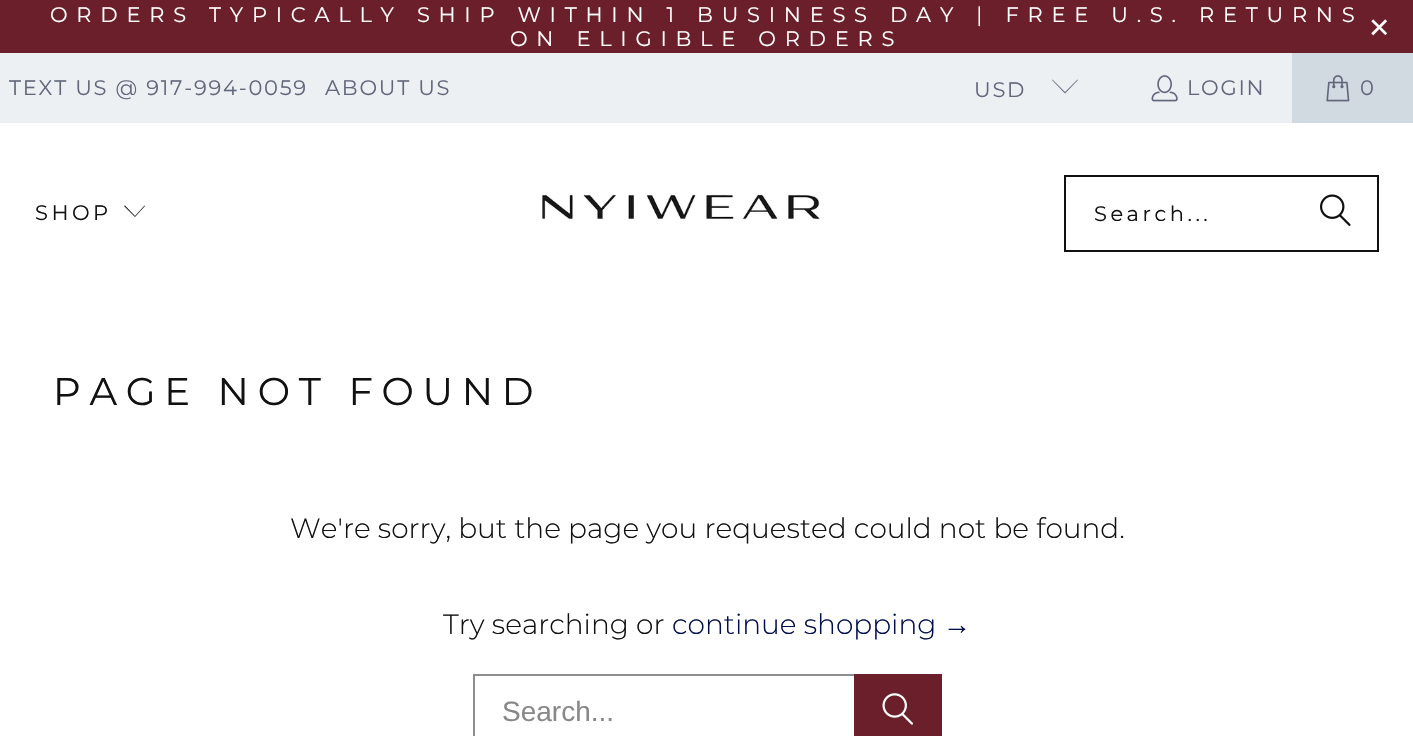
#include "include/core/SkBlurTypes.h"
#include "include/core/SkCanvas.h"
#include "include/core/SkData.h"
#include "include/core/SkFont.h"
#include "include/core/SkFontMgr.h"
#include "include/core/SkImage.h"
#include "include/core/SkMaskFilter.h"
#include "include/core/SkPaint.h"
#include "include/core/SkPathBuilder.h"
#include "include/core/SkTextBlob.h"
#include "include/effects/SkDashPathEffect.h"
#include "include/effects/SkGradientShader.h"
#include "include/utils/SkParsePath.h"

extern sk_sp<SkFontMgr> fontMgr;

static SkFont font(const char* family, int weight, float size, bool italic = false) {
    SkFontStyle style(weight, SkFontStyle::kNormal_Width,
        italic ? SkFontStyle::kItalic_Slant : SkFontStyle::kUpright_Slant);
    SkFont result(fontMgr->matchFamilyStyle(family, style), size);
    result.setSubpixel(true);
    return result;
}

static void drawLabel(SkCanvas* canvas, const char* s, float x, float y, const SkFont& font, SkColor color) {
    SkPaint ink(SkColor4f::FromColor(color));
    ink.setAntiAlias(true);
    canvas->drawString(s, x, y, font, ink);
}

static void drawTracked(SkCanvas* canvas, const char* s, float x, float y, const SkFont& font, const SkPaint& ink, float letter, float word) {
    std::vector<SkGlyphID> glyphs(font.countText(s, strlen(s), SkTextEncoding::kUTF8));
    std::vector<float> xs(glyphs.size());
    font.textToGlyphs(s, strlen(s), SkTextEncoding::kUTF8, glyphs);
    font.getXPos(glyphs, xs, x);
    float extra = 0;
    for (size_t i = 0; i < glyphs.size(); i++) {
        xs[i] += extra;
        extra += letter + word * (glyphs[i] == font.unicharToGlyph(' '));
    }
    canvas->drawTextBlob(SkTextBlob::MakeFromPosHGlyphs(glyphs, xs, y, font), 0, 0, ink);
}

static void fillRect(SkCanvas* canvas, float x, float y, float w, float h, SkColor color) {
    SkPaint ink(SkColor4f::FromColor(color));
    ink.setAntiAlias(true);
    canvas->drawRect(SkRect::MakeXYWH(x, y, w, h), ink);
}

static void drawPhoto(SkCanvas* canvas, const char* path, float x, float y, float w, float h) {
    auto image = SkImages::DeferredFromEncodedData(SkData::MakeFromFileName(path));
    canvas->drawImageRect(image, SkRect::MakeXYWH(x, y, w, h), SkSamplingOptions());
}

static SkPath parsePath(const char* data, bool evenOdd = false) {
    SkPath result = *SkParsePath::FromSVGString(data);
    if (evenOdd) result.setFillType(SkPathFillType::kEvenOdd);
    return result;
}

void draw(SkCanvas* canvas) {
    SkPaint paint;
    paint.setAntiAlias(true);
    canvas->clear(0xFFFFFFFF);
    fillRect(canvas, 0, 0, 1413, 53, 0xFF6B1F2A);
    SkFont font1 = font("Montserrat", 400, 21);
    paint.setColor(0xFFFFFFFF);
    drawTracked(canvas, "ORDERS TYPICALLY SHIP WITHIN 1 BUSINESS DAY | FREE U.S. RETURNS", 50, 22, font1, paint, 8.75f, 0);
    drawTracked(canvas, "ON ELIGIBLE ORDERS", 510, 46, font1, paint, 8.75f, 0);
    SkFont font2 = font("Liberation Sans", 400, 35);
    drawTracked(canvas, "×", 1369, 39, font2, paint, 8.75f, 0);
    fillRect(canvas, 0, 53, 1292, 70, 0xFFECF0F3);
    paint.setColor(0xFF62677B);
    drawTracked(canvas, "TEXT US @ 917-994-0059", 9, 95, font1, paint, 1.75f, 0);
    drawTracked(canvas, "ABOUT US", 325, 95, font1, paint, 1.75f, 0);
    drawTracked(canvas, "USD", 974, 97, font1, paint, 1.75f, 0);
    canvas->drawPath(parsePath("M1065 93.5L1052 80L1052.5 79.5L1065 92L1077.5 79.5L1078 80Z"), paint);
    drawPhoto(canvas, "assets/img1.png", 1151, 75, 27, 27);
    drawTracked(canvas, "LOGIN", 1187, 95, font1, paint, 1.75f, 0);
    fillRect(canvas, 1292, 53, 121, 70, 0xFFD1D9E1);
    drawPhoto(canvas, "assets/img2.png", 1326, 75, 24, 27);
    drawTracked(canvas, "0", 1360, 95, font1, paint, 1.75f, 0);
    paint.setColor(0xFF111111);
    drawTracked(canvas, "SHOP", 35, 220, font1, paint, 3.5f, 0);
    canvas->drawPath(parsePath("M135 217L124 206L125 205.5L135 216L144.5 205.5L145 206Z"), paint);
    drawPhoto(canvas, "assets/img3.png", 542, 194, 278, 26);
    paint.setStroke(true);
    paint.setStrokeWidth(2);
    canvas->drawRect(SkRect::MakeXYWH(1065, 176, 313, 75), paint);
    paint.setStroke(false);
    drawTracked(canvas, "Search...", 1094, 221, font1, paint, 3.5f, 0);
    drawPhoto(canvas, "assets/img4.png", 1320, 194, 31, 32);
    SkFont font3 = font("Montserrat", 400, 38.5f);
    drawTracked(canvas, "PAGE NOT FOUND", 53, 405, font3, paint, 8.75f, 0);
    SkFont font4 = font("Montserrat", 300, 28);
    drawLabel(canvas, "We're sorry, but the page you requested could not be found.", 290, 538, font4, 0xFF111111);
    drawLabel(canvas, "Try searching or", 443, 634, font4, 0xFF111111);
    drawLabel(canvas, "continue shopping", 672, 634, font4, 0xFF020F4C);
    SkFont font5 = font("Liberation Sans", 400, 28);
    drawLabel(canvas, "→", 943, 634, font5, 0xFF020F4C);
    paint.setStroke(true);
    paint.setColor(0xFF8D8D8D);
    canvas->drawRect(SkRect::MakeXYWH(474, 675, 467, 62), paint);
    drawLabel(canvas, "Search...", 502, 721, font5, 0xFF888888);
    fillRect(canvas, 854, 674, 88, 62, 0xFF6B1F2A);
    drawPhoto(canvas, "assets/img5.png", 882, 693, 31, 32);
}
